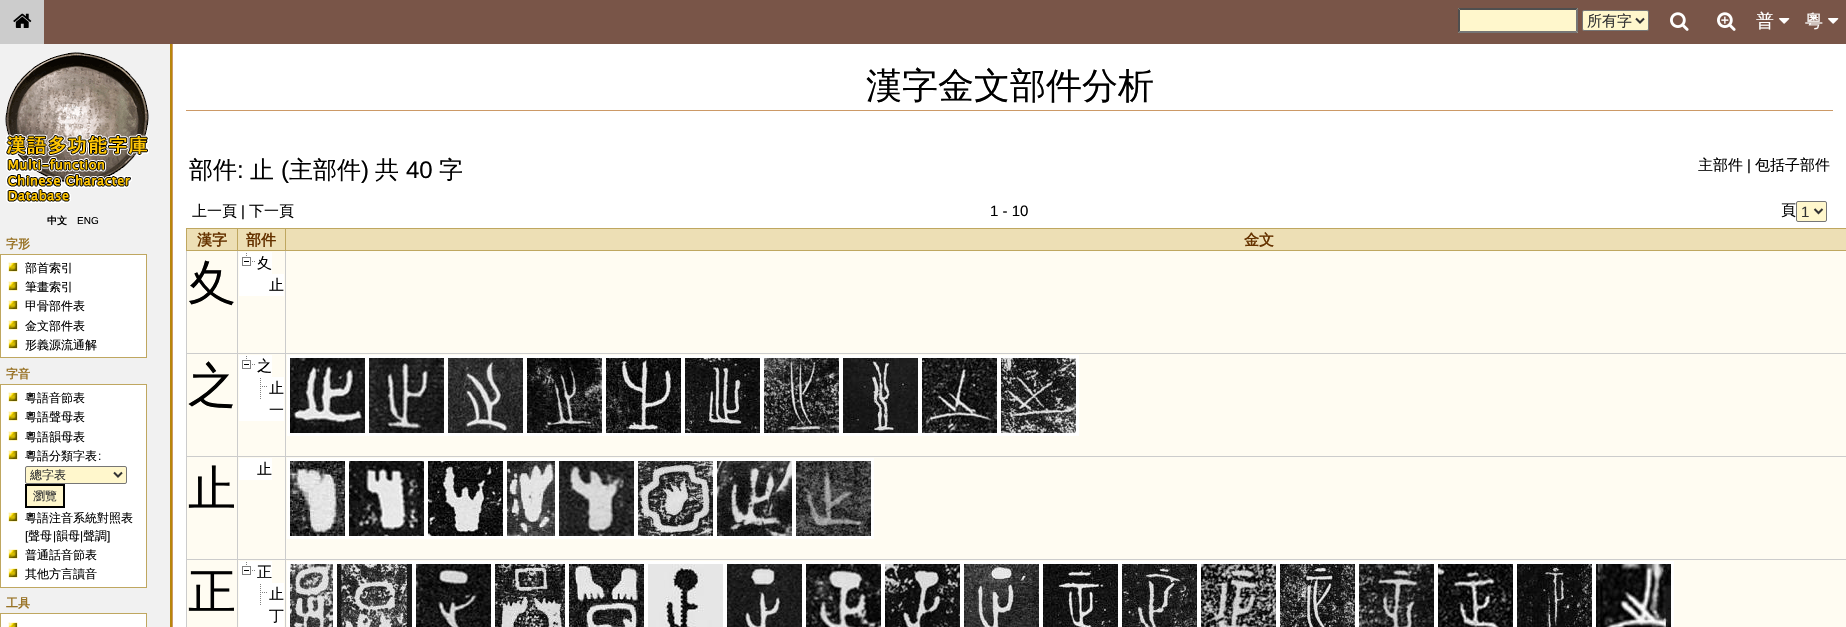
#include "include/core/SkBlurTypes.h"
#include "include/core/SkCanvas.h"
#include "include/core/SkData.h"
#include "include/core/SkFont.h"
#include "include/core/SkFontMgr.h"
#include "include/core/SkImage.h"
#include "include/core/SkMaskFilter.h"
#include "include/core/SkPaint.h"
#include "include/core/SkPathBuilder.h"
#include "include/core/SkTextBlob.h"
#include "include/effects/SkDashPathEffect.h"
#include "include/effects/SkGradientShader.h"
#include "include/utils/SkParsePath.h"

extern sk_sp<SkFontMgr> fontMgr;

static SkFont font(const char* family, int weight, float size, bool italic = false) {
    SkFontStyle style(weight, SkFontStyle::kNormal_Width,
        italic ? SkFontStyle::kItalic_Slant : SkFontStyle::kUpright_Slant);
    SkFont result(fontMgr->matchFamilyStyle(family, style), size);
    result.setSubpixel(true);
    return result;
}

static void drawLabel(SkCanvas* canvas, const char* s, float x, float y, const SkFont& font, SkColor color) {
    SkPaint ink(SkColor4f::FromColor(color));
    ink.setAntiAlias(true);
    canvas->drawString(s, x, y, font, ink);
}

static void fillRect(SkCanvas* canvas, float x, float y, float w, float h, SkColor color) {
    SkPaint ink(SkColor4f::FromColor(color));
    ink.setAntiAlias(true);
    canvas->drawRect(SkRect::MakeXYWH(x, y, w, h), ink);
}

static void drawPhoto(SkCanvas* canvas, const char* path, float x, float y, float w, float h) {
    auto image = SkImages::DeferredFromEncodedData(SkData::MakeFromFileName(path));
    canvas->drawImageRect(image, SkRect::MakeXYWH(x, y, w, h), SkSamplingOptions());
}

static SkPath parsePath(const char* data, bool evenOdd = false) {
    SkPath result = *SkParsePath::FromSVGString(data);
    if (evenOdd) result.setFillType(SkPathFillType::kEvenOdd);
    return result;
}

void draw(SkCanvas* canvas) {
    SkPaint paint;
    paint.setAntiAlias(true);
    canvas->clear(0xFFFFFFFF);
    fillRect(canvas, 44, 0, 1802, 44, 0xFF795548);
    fillRect(canvas, 0, 0, 44, 44, 0xFFCCCCCC);
    drawPhoto(canvas, "assets/img1.png", 13, 13, 19, 15);
    fillRect(canvas, 1458, 8, 120, 25, 0xFFFFF7CC);
    paint.setColor(0xFF4F4F4F);
    canvas->drawPath(parsePath("M1458 8H1578L1576 10H1460Z"), paint);
    paint.setColor(0xFF767676);
    canvas->drawPath(parsePath("M1578 8V33L1576 31V10Z"), paint);
    canvas->drawPath(parsePath("M1578 33H1458L1460 31H1576Z"), paint);
    paint.setColor(0xFF4F4F4F);
    canvas->drawPath(parsePath("M1458 33V8L1460 10V31Z"), paint);
    paint.setColor(0xFFFFF7CC);
    canvas->drawRoundRect(SkRect::MakeXYWH(1582.5f, 10.5f, 66, 20), 1.5f, 1.5f, paint);
    paint.setStroke(true);
    paint.setStrokeWidth(1);
    paint.setColor(0xFF767676);
    canvas->drawRoundRect(SkRect::MakeXYWH(1582.5f, 10.5f, 66, 20), 1.5f, 1.5f, paint);
    paint.setStrokeWidth(2);
    paint.setColor(0xFF333333);
    canvas->drawPath(parsePath("M1636 18.5L1640 22.5L1644 18.5"), paint);
    SkFont font1 = font("WenQuanYi Zen Hei", 500, 15);
    drawLabel(canvas, "所有字", 1587, 26, font1, 0xFF333333);
    drawPhoto(canvas, "assets/img2.png", 1670, 12, 19, 19);
    drawPhoto(canvas, "assets/img3.png", 1717, 12, 19, 19);
    SkFont font2 = font("WenQuanYi Zen Hei", 500, 18);
    drawLabel(canvas, "普", 1756, 27, font2, 0xFFFFFFFF);
    drawPhoto(canvas, "assets/img4.png", 1779, 18, 11, 6);
    drawLabel(canvas, "粵", 1805, 27, font2, 0xFFFFFFFF);
    drawPhoto(canvas, "assets/img4.png", 1828, 18, 11, 6);
    fillRect(canvas, 0, 44, 170, 583, 0xFFF1F1F1);
    fillRect(canvas, 170, 44, 2, 583, 0xFFB8860B);
    drawPhoto(canvas, "assets/img5.png", 5, 52, 144, 151);
    SkFont font3 = font("WenQuanYi Zen Hei", 700, 10);
    drawLabel(canvas, "中文", 47, 224, font3, 0xFF000000);
    SkFont font4 = font("Liberation Sans", 400, 10);
    drawLabel(canvas, "ENG", 77, 224, font4, 0xFF000000);
    SkFont font5 = font("WenQuanYi Zen Hei", 700, 12);
    drawLabel(canvas, "字形", 6, 248, font5, 0xFF997326);
    paint.setStroke(false);
    paint.setColor(0xFFFFFFFF);
    canvas->drawRect(SkRect::MakeXYWH(0.5f, 254.5f, 146, 103), paint);
    paint.setStroke(true);
    paint.setStrokeWidth(1);
    paint.setColor(0xFFBFA760);
    canvas->drawRect(SkRect::MakeXYWH(0.5f, 254.5f, 146, 103), paint);
    drawPhoto(canvas, "assets/img6.png", 8, 262, 10, 10);
    SkFont font6 = font("WenQuanYi Zen Hei", 500, 12);
    drawLabel(canvas, "部首索引", 25, 272, font6, 0xFF000000);
    drawPhoto(canvas, "assets/img6.png", 8, 281, 10, 10);
    drawLabel(canvas, "筆畫索引", 25, 291, font6, 0xFF000000);
    drawPhoto(canvas, "assets/img6.png", 8, 300, 10, 10);
    drawLabel(canvas, "甲骨部件表", 25, 310, font6, 0xFF000000);
    drawPhoto(canvas, "assets/img6.png", 8, 320, 10, 10);
    drawLabel(canvas, "金文部件表", 25, 330, font6, 0xFF000000);
    drawPhoto(canvas, "assets/img6.png", 8, 339, 10, 10);
    drawLabel(canvas, "形義源流通解", 25, 349, font6, 0xFF000000);
    drawLabel(canvas, "字音", 6, 378, font5, 0xFF997326);
    paint.setStroke(false);
    paint.setColor(0xFFFFFFFF);
    canvas->drawRect(SkRect::MakeXYWH(0.5f, 384.5f, 146, 203), paint);
    paint.setStroke(true);
    paint.setColor(0xFFBFA760);
    canvas->drawRect(SkRect::MakeXYWH(0.5f, 384.5f, 146, 203), paint);
    drawPhoto(canvas, "assets/img6.png", 8, 392, 10, 10);
    drawLabel(canvas, "粵語音節表", 25, 402, font6, 0xFF000000);
    drawPhoto(canvas, "assets/img6.png", 8, 411, 10, 10);
    drawLabel(canvas, "粵語聲母表", 25, 421, font6, 0xFF000000);
    drawPhoto(canvas, "assets/img6.png", 8, 431, 10, 10);
    drawLabel(canvas, "粵語韻母表", 25, 441, font6, 0xFF000000);
    drawPhoto(canvas, "assets/img6.png", 8, 450, 10, 10);
    drawLabel(canvas, "粵語分類字表", 25, 460, font6, 0xFF000000);
    SkFont font7 = font("Liberation Sans", 400, 12);
    drawLabel(canvas, ":", 98, 460, font7, 0xFF000000);
    paint.setStroke(false);
    paint.setColor(0xFFFFF7CC);
    canvas->drawRoundRect(SkRect::MakeXYWH(25.5f, 466.5f, 101, 17), 1.5f, 1.5f, paint);
    paint.setStroke(true);
    paint.setColor(0xFF767676);
    canvas->drawRoundRect(SkRect::MakeXYWH(25.5f, 466.5f, 101, 17), 1.5f, 1.5f, paint);
    paint.setStrokeWidth(2);
    paint.setColor(0xFF333333);
    canvas->drawPath(parsePath("M114 472.5L118 476.5L122 472.5"), paint);
    drawLabel(canvas, "總字表", 30, 479, font6, 0xFF333333);
    paint.setStroke(false);
    paint.setColor(0xFFFFF7CC);
    canvas->drawRect(SkRect::MakeXYWH(26, 485, 38, 22), paint);
    paint.setStroke(true);
    paint.setColor(0xFF000000);
    canvas->drawRect(SkRect::MakeXYWH(26, 485, 38, 22), paint);
    drawLabel(canvas, "瀏覽", 33, 500, font6, 0xFF333333);
    drawPhoto(canvas, "assets/img6.png", 8, 512, 10, 10);
    drawLabel(canvas, "粵語注音系統對照表", 25, 522, font6, 0xFF000000);
    drawLabel(canvas, "[", 25, 540, font7, 0xFF000000);
    drawLabel(canvas, "聲母", 28, 540, font6, 0xFF000000);
    drawLabel(canvas, "|", 53, 540, font7, 0xFF000000);
    drawLabel(canvas, "韻母", 56, 540, font6, 0xFF000000);
    drawLabel(canvas, "|", 80, 540, font7, 0xFF000000);
    drawLabel(canvas, "聲調", 83, 540, font6, 0xFF000000);
    drawLabel(canvas, "]", 107, 540, font7, 0xFF000000);
    drawPhoto(canvas, "assets/img6.png", 8, 549, 10, 10);
    drawLabel(canvas, "普通話音節表", 25, 559, font6, 0xFF000000);
    drawPhoto(canvas, "assets/img6.png", 8, 568, 10, 10);
    drawLabel(canvas, "其他方言讀音", 25, 578, font6, 0xFF000000);
    drawLabel(canvas, "工具", 6, 607, font5, 0xFF997326);
    paint.setStroke(false);
    paint.setColor(0xFFFFFFFF);
    canvas->drawRect(SkRect::MakeXYWH(0.5f, 613.5f, 146, 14), paint);
    paint.setStroke(true);
    paint.setStrokeWidth(1);
    paint.setColor(0xFFBFA760);
    canvas->drawRect(SkRect::MakeXYWH(0.5f, 613.5f, 146, 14), paint);
    drawPhoto(canvas, "assets/img7.png", 8, 622, 10, 5);
    fillRect(canvas, 172, 44, 1, 583, 0xFFCC9966);
    fillRect(canvas, 186, 110, 1647, 1, 0xFFCC9966);
    SkFont font8 = font("WenQuanYi Zen Hei", 500, 36);
    drawLabel(canvas, "漢字金文部件分析", 866, 98, font8, 0xFF000000);
    SkFont font9 = font("WenQuanYi Zen Hei", 500, 24);
    drawLabel(canvas, "部件", 189, 178, font9, 0xFF000000);
    SkFont font10 = font("Liberation Sans", 400, 24);
    drawLabel(canvas, ":", 237, 178, font10, 0xFF000000);
    drawLabel(canvas, "止", 250, 178, font9, 0xFF000000);
    drawLabel(canvas, "(", 281, 178, font10, 0xFF000000);
    drawLabel(canvas, "主部件", 289, 178, font9, 0xFF000000);
    drawLabel(canvas, ")", 361, 178, font10, 0xFF000000);
    drawLabel(canvas, "共", 375, 178, font9, 0xFF000000);
    drawLabel(canvas, "40", 406, 178, font10, 0xFF000000);
    drawLabel(canvas, "字", 439, 178, font9, 0xFF000000);
    drawLabel(canvas, "主部件", 1698, 170, font1, 0xFF000000);
    SkFont font11 = font("Liberation Sans", 400, 15);
    drawLabel(canvas, "|", 1747, 170, font11, 0xFF000000);
    drawLabel(canvas, "包括子部件", 1755, 170, font1, 0xFF000000);
    drawLabel(canvas, "上一頁", 192, 216, font1, 0xFF000000);
    drawLabel(canvas, "|", 241, 216, font11, 0xFF000000);
    drawLabel(canvas, "下一頁", 249, 216, font1, 0xFF000000);
    drawLabel(canvas, "1 - 10", 990, 216, font11, 0xFF000000);
    drawLabel(canvas, "頁", 1781, 215, font1, 0xFF000000);
    paint.setStroke(false);
    paint.setColor(0xFFFFF7CC);
    canvas->drawRoundRect(SkRect::MakeXYWH(1796.5f, 201.5f, 30, 20), 1.5f, 1.5f, paint);
    paint.setStroke(true);
    paint.setColor(0xFF767676);
    canvas->drawRoundRect(SkRect::MakeXYWH(1796.5f, 201.5f, 30, 20), 1.5f, 1.5f, paint);
    paint.setStrokeWidth(2);
    paint.setColor(0xFF333333);
    canvas->drawPath(parsePath("M1814.5 209L1818.5 213L1822.5 209"), paint);
    drawLabel(canvas, "1", 1801, 217, font11, 0xFF333333);
    fillRect(canvas, 186, 228, 1660, 1, 0xFFBFA760);
    fillRect(canvas, 186, 228, 1, 22, 0xFFBFA760);
    fillRect(canvas, 187, 229, 50, 21, 0xFFEDDFB5);
    fillRect(canvas, 285, 353, 1561, 1, 0xFFCCCCCC);
    fillRect(canvas, 285, 456, 1561, 1, 0xFFCCCCCC);
    fillRect(canvas, 285, 559, 1561, 1, 0xFFCCCCCC);
    fillRect(canvas, 285, 559, 1, 68, 0xFFCCCCCC);
    fillRect(canvas, 237, 559, 49, 1, 0xFFCCCCCC);
    fillRect(canvas, 285, 456, 1, 104, 0xFFCCCCCC);
    fillRect(canvas, 237, 456, 49, 1, 0xFFCCCCCC);
    fillRect(canvas, 285, 353, 1, 104, 0xFFCCCCCC);
    fillRect(canvas, 237, 353, 49, 1, 0xFFCCCCCC);
    fillRect(canvas, 285, 250, 1, 104, 0xFFCCCCCC);
    fillRect(canvas, 285, 250, 1561, 1, 0xFFBFA760);
    fillRect(canvas, 285, 228, 1, 23, 0xFFBFA760);
    fillRect(canvas, 237, 559, 1, 68, 0xFFCCCCCC);
    fillRect(canvas, 186, 559, 52, 1, 0xFFCCCCCC);
    fillRect(canvas, 237, 456, 1, 104, 0xFFCCCCCC);
    fillRect(canvas, 186, 456, 52, 1, 0xFFCCCCCC);
    fillRect(canvas, 237, 353, 1, 104, 0xFFCCCCCC);
    fillRect(canvas, 186, 353, 52, 1, 0xFFCCCCCC);
    fillRect(canvas, 237, 250, 1, 104, 0xFFCCCCCC);
    fillRect(canvas, 237, 250, 49, 1, 0xFFBFA760);
    fillRect(canvas, 237, 228, 1, 23, 0xFFBFA760);
    fillRect(canvas, 186, 559, 1, 68, 0xFFCCCCCC);
    fillRect(canvas, 186, 456, 1, 104, 0xFFCCCCCC);
    fillRect(canvas, 186, 250, 1, 207, 0xFFCCCCCC);
    fillRect(canvas, 186, 250, 52, 1, 0xFFBFA760);
    SkFont font12 = font("WenQuanYi Zen Hei", 700, 15);
    drawLabel(canvas, "漢字", 197, 245, font12, 0xFF663300);
    fillRect(canvas, 238, 229, 47, 21, 0xFFEDDFB5);
    drawLabel(canvas, "部件", 246, 245, font12, 0xFF663300);
    fillRect(canvas, 286, 229, 1560, 21, 0xFFEDDFB5);
    drawLabel(canvas, "金文", 1244, 245, font12, 0xFF663300);
    fillRect(canvas, 187, 251, 50, 102, 0xFFFFFCF2);
    SkFont font13 = font("WenQuanYi Zen Hei", 500, 48);
    drawLabel(canvas, "夊", 188, 299, font13, 0xFF000000);
    fillRect(canvas, 238, 251, 47, 102, 0xFFFFFCF2);
    fillRect(canvas, 239, 252, 33, 22, 0xFFFFFFFF);
    drawPhoto(canvas, "assets/img8.png", 242, 253, 13, 13);
    drawLabel(canvas, "夊", 257, 268, font1, 0xFF000000);
    fillRect(canvas, 239, 274, 45, 22, 0xFFFFFFFF);
    drawLabel(canvas, "止", 269, 290, font1, 0xFF000000);
    fillRect(canvas, 286, 251, 1560, 102, 0xFFFFFCF2);
    fillRect(canvas, 187, 354, 50, 102, 0xFFFFFCF2);
    drawLabel(canvas, "之", 188, 402, font13, 0xFF000000);
    fillRect(canvas, 238, 354, 47, 102, 0xFFFFFCF2);
    fillRect(canvas, 239, 355, 33, 22, 0xFFFFFFFF);
    drawPhoto(canvas, "assets/img8.png", 242, 356, 13, 13);
    drawLabel(canvas, "之", 257, 371, font1, 0xFF000000);
    fillRect(canvas, 239, 377, 45, 44, 0xFFFFFFFF);
    drawPhoto(canvas, "assets/img9.png", 260, 378, 7, 21);
    drawLabel(canvas, "止", 269, 393, font1, 0xFF000000);
    drawLabel(canvas, "一", 269, 415, font1, 0xFF000000);
    fillRect(canvas, 286, 354, 1560, 102, 0xFFFFFCF2);
    fillRect(canvas, 287, 355, 792, 81, 0xFFFFFFFF);
    drawPhoto(canvas, "assets/img10.png", 290, 358, 75, 75);
    drawPhoto(canvas, "assets/img11.png", 369, 358, 75, 75);
    drawPhoto(canvas, "assets/img12.png", 448, 358, 75, 75);
    drawPhoto(canvas, "assets/img13.png", 527, 358, 75, 75);
    drawPhoto(canvas, "assets/img14.png", 606, 358, 75, 75);
    drawPhoto(canvas, "assets/img15.png", 685, 358, 75, 75);
    drawPhoto(canvas, "assets/img16.png", 764, 358, 75, 75);
    drawPhoto(canvas, "assets/img17.png", 843, 358, 75, 75);
    drawPhoto(canvas, "assets/img18.png", 922, 358, 75, 75);
    drawPhoto(canvas, "assets/img19.png", 1001, 358, 75, 75);
    fillRect(canvas, 187, 457, 50, 102, 0xFFFFFCF2);
    drawLabel(canvas, "止", 188, 505, font13, 0xFF000000);
    fillRect(canvas, 238, 457, 47, 102, 0xFFFFFCF2);
    fillRect(canvas, 239, 458, 33, 22, 0xFFFFFFFF);
    drawLabel(canvas, "止", 257, 474, font1, 0xFF000000);
    fillRect(canvas, 286, 457, 1560, 102, 0xFFFFFCF2);
    fillRect(canvas, 287, 458, 587, 81, 0xFFFFFFFF);
    drawPhoto(canvas, "assets/img20.png", 290, 461, 55, 75);
    drawPhoto(canvas, "assets/img21.png", 349, 461, 75, 75);
    drawPhoto(canvas, "assets/img22.png", 428, 461, 75, 75);
    drawPhoto(canvas, "assets/img23.png", 507, 461, 48, 75);
    drawPhoto(canvas, "assets/img24.png", 559, 461, 75, 75);
    drawPhoto(canvas, "assets/img25.png", 638, 461, 75, 75);
    drawPhoto(canvas, "assets/img26.png", 717, 461, 75, 75);
    drawPhoto(canvas, "assets/img27.png", 796, 461, 75, 75);
    fillRect(canvas, 187, 560, 50, 67, 0xFFFFFCF2);
    drawLabel(canvas, "正", 188, 608, font13, 0xFF000000);
    fillRect(canvas, 238, 560, 47, 67, 0xFFFFFCF2);
    fillRect(canvas, 239, 561, 33, 22, 0xFFFFFFFF);
    drawPhoto(canvas, "assets/img8.png", 242, 562, 13, 13);
    drawLabel(canvas, "正", 257, 577, font1, 0xFF000000);
    fillRect(canvas, 239, 583, 45, 44, 0xFFFFFFFF);
    drawPhoto(canvas, "assets/img9.png", 260, 584, 7, 21);
    drawLabel(canvas, "止", 269, 599, font1, 0xFF000000);
    drawLabel(canvas, "丁", 269, 621, font1, 0xFF000000);
    fillRect(canvas, 286, 560, 1560, 67, 0xFFFFFCF2);
    fillRect(canvas, 287, 561, 1387, 66, 0xFFFFFFFF);
    drawPhoto(canvas, "assets/img28.png", 290, 564, 43, 63);
    drawPhoto(canvas, "assets/img29.png", 337, 564, 75, 63);
    drawPhoto(canvas, "assets/img30.png", 416, 564, 75, 63);
    drawPhoto(canvas, "assets/img31.png", 495, 564, 70, 63);
    drawPhoto(canvas, "assets/img32.png", 569, 564, 75, 63);
    drawPhoto(canvas, "assets/img33.png", 648, 564, 75, 63);
    drawPhoto(canvas, "assets/img34.png", 727, 564, 75, 63);
    drawPhoto(canvas, "assets/img35.png", 806, 564, 75, 63);
    drawPhoto(canvas, "assets/img36.png", 885, 564, 75, 63);
    drawPhoto(canvas, "assets/img37.png", 964, 564, 75, 63);
    drawPhoto(canvas, "assets/img38.png", 1043, 564, 75, 63);
    drawPhoto(canvas, "assets/img39.png", 1122, 564, 75, 63);
    drawPhoto(canvas, "assets/img40.png", 1201, 564, 75, 63);
    drawPhoto(canvas, "assets/img41.png", 1280, 564, 75, 63);
    drawPhoto(canvas, "assets/img42.png", 1359, 564, 75, 63);
    drawPhoto(canvas, "assets/img43.png", 1438, 564, 75, 63);
    drawPhoto(canvas, "assets/img44.png", 1517, 564, 75, 63);
    drawPhoto(canvas, "assets/img45.png", 1596, 564, 75, 63);
}
